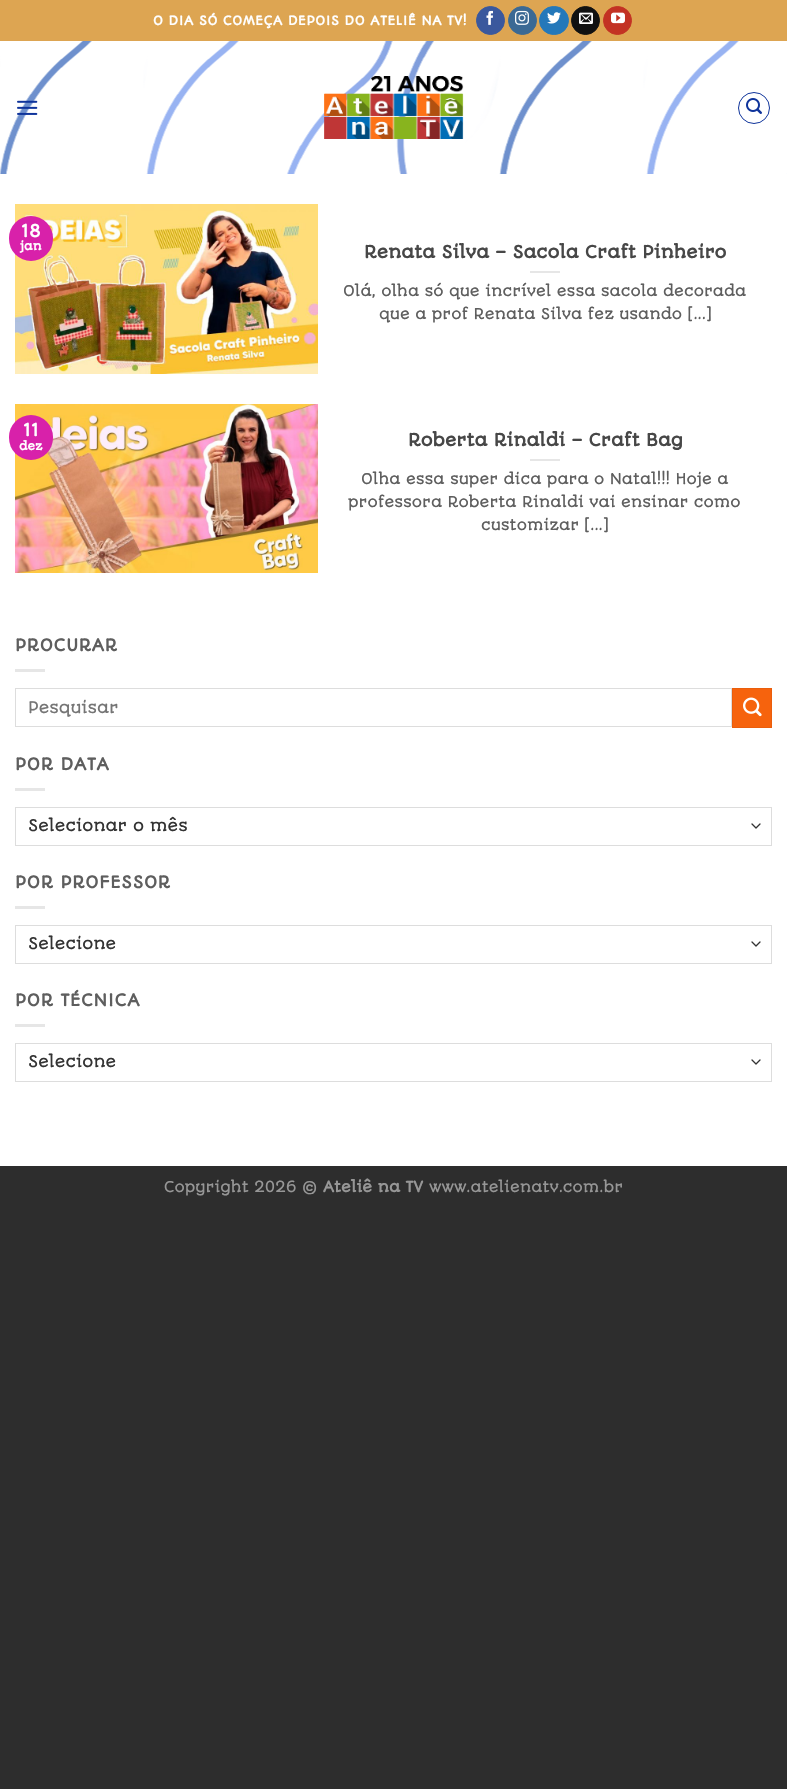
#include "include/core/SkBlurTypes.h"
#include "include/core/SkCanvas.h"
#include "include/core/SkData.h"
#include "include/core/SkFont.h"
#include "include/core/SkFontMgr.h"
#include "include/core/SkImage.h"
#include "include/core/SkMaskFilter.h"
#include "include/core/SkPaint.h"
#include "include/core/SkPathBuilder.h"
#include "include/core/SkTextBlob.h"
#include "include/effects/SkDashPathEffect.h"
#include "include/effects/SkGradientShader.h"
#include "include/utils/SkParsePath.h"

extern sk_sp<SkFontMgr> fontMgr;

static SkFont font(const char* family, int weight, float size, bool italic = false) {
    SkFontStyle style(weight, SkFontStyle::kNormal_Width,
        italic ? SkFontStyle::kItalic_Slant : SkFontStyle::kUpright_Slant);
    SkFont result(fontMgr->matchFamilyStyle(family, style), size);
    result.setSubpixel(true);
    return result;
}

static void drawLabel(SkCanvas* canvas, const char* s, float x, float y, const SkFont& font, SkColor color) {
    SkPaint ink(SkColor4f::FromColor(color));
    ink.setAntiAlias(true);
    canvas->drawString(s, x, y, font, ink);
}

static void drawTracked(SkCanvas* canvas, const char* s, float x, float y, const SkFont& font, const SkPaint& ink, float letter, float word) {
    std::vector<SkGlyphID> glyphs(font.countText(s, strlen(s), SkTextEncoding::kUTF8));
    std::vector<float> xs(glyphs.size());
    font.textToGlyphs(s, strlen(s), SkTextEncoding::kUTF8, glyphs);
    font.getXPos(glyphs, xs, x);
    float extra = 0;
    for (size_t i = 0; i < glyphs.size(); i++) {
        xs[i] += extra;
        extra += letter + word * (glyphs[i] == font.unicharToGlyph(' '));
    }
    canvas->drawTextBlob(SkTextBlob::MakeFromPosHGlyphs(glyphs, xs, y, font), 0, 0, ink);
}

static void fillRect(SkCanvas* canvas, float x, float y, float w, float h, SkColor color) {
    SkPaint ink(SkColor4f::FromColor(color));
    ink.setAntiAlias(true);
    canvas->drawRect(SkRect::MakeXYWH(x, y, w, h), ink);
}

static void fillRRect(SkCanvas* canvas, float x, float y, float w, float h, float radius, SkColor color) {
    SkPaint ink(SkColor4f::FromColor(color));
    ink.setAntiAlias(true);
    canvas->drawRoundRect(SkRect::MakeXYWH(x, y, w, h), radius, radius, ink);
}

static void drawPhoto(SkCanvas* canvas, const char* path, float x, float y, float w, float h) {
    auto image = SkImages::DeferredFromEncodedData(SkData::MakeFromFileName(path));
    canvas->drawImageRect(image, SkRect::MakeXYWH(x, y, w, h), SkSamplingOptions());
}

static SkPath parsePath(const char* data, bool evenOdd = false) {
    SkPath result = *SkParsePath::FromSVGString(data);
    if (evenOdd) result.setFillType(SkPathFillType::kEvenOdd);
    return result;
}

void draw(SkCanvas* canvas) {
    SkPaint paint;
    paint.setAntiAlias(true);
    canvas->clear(0xFF2D2D2D);
    fillRect(canvas, 0, 41, 787, 1125, 0xFFFFFFFF);
    fillRect(canvas, 0, 0, 787, 41, 0xFFDDA552);
    SkFont font1 = font("Autour One", 700, 12);
    paint.setColor(0xFFFFFFFF);
    drawTracked(canvas, "O DIA SÓ COMEÇA DEPOIS DO ATELIÊ NA TV!", 153, 25, font1, paint, 0.6f, 0);
    paint.setColor(0xFF3A589D);
    canvas->drawCircle(490.5f, 20.5f, 14, paint);
    paint.setStroke(true);
    paint.setStrokeWidth(1);
    canvas->drawCircle(490.5f, 20.5f, 14, paint);
    drawPhoto(canvas, "assets/img1.png", 486, 10, 7, 15);
    paint.setStroke(false);
    paint.setColor(0xFF3B6994);
    canvas->drawCircle(522.5f, 20.5f, 14, paint);
    paint.setStroke(true);
    canvas->drawCircle(522.5f, 20.5f, 14, paint);
    drawPhoto(canvas, "assets/img2.png", 515, 10, 14, 15);
    paint.setStroke(false);
    paint.setColor(0xFF2478BA);
    canvas->drawRoundRect(SkRect::MakeXYWH(539.5f, 6.5f, 29, 28), 14, 14, paint);
    paint.setStroke(true);
    canvas->drawRoundRect(SkRect::MakeXYWH(539.5f, 6.5f, 29, 28), 14, 14, paint);
    drawPhoto(canvas, "assets/img3.png", 547, 12, 14, 12);
    paint.setStroke(false);
    paint.setColor(0xFF111111);
    canvas->drawCircle(585.5f, 20.5f, 14, paint);
    paint.setStroke(true);
    canvas->drawCircle(585.5f, 20.5f, 14, paint);
    drawPhoto(canvas, "assets/img4.png", 579, 12, 14, 12);
    paint.setStroke(false);
    paint.setColor(0xFFC33223);
    canvas->drawCircle(617.5f, 20.5f, 14, paint);
    paint.setStroke(true);
    canvas->drawCircle(617.5f, 20.5f, 14, paint);
    drawPhoto(canvas, "assets/img5.png", 611, 12, 14, 12);
    drawPhoto(canvas, "assets/img6.png", 0, 41, 787, 133);
    drawPhoto(canvas, "assets/img7.png", 17, 100, 21, 15);
    drawPhoto(canvas, "assets/img8.png", 324, 76, 140, 63);
    paint.setColor(0xFF0F349B);
    canvas->drawCircle(754, 108, 15.5f, paint);
    drawPhoto(canvas, "assets/img9.png", 746, 98, 16, 16);
    drawPhoto(canvas, "assets/img10.png", 15, 204, 303, 170);
    fillRRect(canvas, 9, 216, 44, 45, 22, 0xFFD821AA);
    SkFont font2 = font("Autour One", 700, 16);
    drawLabel(canvas, "18", 21, 237, font2, 0xFFFFFFFF);
    SkFont font3 = font("Autour One", 700, 11);
    drawLabel(canvas, "jan", 20, 250, font3, 0xFFFFFFFF);
    SkFont font4 = font("Autour One", 700, 16.6f);
    drawLabel(canvas, "Renata Silva – Sacola Craft Pinheiro", 364, 258, font4, 0xFF474747);
    fillRect(canvas, 530, 271, 30, 2, 0xFFE6E6E6);
    SkFont font5 = font("Autour One", 400, 14.4f);
    drawLabel(canvas, "Olá, olha só que incrível essa sacola decorada", 343, 296, font5, 0xFF5E5E5E);
    drawLabel(canvas, "que a prof Renata Silva fez usando [...]", 379, 319, font5, 0xFF5E5E5E);
    drawPhoto(canvas, "assets/img11.png", 15, 404, 303, 169);
    fillRRect(canvas, 9, 415, 44, 45, 22, 0xFFD821AA);
    drawLabel(canvas, "11", 23, 436, font2, 0xFFFFFFFF);
    drawLabel(canvas, "dez", 19, 450, font3, 0xFFFFFFFF);
    drawLabel(canvas, "Roberta Rinaldi – Craft Bag", 408, 446, font4, 0xFF474747);
    fillRect(canvas, 530, 459, 30, 2, 0xFFE6E6E6);
    drawLabel(canvas, "Olha essa super dica para o Natal!!! Hoje a", 361, 484, font5, 0xFF5E5E5E);
    drawLabel(canvas, "professora Roberta Rinaldi vai ensinar como", 348, 507, font5, 0xFF5E5E5E);
    drawLabel(canvas, "customizar [...]", 481, 530, font5, 0xFF5E5E5E);
    paint.setStroke(false);
    paint.setColor(0xFF5E5E5E);
    drawTracked(canvas, "PROCURAR", 15, 651, font2, paint, 0.75f, 0);
    fillRect(canvas, 15, 669, 30, 3, 0xFFE6E6E6);
    paint.setStroke(true);
    paint.setColor(0xFFDDDDDD);
    canvas->drawRect(SkRect::MakeXYWH(15.5f, 688.5f, 716, 38), paint);
    SkFont font6 = font("Autour One", 400, 15.5f);
    drawLabel(canvas, "Pesquisar", 28, 713, font6, 0xFF757575);
    paint.setStroke(false);
    paint.setColor(0xFFF6630D);
    canvas->drawRect(SkRect::MakeXYWH(732.5f, 688.5f, 39, 39), paint);
    paint.setStroke(true);
    paint.setColor(0xFFEA5E0C);
    canvas->drawRect(SkRect::MakeXYWH(732.5f, 688.5f, 39, 39), paint);
    drawPhoto(canvas, "assets/img12.png", 743, 697, 19, 20);
    paint.setStroke(false);
    paint.setColor(0xFF5E5E5E);
    drawTracked(canvas, "POR DATA", 15, 770, font2, paint, 0.75f, 0);
    fillRect(canvas, 15, 788, 30, 3, 0xFFE6E6E6);
    paint.setStroke(true);
    paint.setStrokeWidth(1.3f);
    paint.setStrokeCap(SkPaint::kRound_Cap);
    paint.setStrokeJoin(SkPaint::kRound_Join);
    paint.setColor(0xFF333333);
    canvas->drawPath(parsePath("M752 824L756 828L760 824"), paint);
    paint.setStrokeWidth(1);
    paint.setStrokeCap(SkPaint::kButt_Cap);
    paint.setStrokeJoin(SkPaint::kMiter_Join);
    paint.setColor(0xFFDDDDDD);
    canvas->drawRect(SkRect::MakeXYWH(15.5f, 807.5f, 756, 38), paint);
    drawLabel(canvas, "Selecionar o mês", 28, 831, font6, 0xFF333333);
    paint.setStroke(false);
    paint.setColor(0xFF5E5E5E);
    drawTracked(canvas, "POR PROFESSOR", 15, 888, font2, paint, 0.75f, 0);
    fillRect(canvas, 15, 906, 30, 3, 0xFFE6E6E6);
    paint.setStroke(true);
    paint.setStrokeWidth(1.3f);
    paint.setStrokeCap(SkPaint::kRound_Cap);
    paint.setStrokeJoin(SkPaint::kRound_Join);
    paint.setColor(0xFF333333);
    canvas->drawPath(parsePath("M752 942L756 946L760 942"), paint);
    paint.setStrokeWidth(1);
    paint.setStrokeCap(SkPaint::kButt_Cap);
    paint.setStrokeJoin(SkPaint::kMiter_Join);
    paint.setColor(0xFFDDDDDD);
    canvas->drawRect(SkRect::MakeXYWH(15.5f, 925.5f, 756, 38), paint);
    drawLabel(canvas, "Selecione", 28, 949, font6, 0xFF333333);
    paint.setStroke(false);
    paint.setColor(0xFF5E5E5E);
    drawTracked(canvas, "POR TÉCNICA", 15, 1006, font2, paint, 0.75f, 0);
    fillRect(canvas, 15, 1024, 30, 3, 0xFFE6E6E6);
    paint.setStroke(true);
    paint.setStrokeWidth(1.3f);
    paint.setStrokeCap(SkPaint::kRound_Cap);
    paint.setStrokeJoin(SkPaint::kRound_Join);
    paint.setColor(0xFF333333);
    canvas->drawPath(parsePath("M752 1060L756 1064L760 1060"), paint);
    paint.setStrokeWidth(1);
    paint.setStrokeCap(SkPaint::kButt_Cap);
    paint.setStrokeJoin(SkPaint::kMiter_Join);
    paint.setColor(0xFFDDDDDD);
    canvas->drawRect(SkRect::MakeXYWH(15.5f, 1043.5f, 756, 38), paint);
    drawLabel(canvas, "Selecione", 28, 1067, font6, 0xFF333333);
    drawLabel(canvas, "Copyright 2026 ©", 164, 1192, font5, 0xFF969696);
    SkFont font7 = font("Autour One", 700, 14.4f);
    drawLabel(canvas, "Ateliê na TV", 323, 1192, font7, 0xFF969696);
    drawLabel(canvas, "www.atelienatv.com.br", 429, 1192, font5, 0xFF969696);
}
